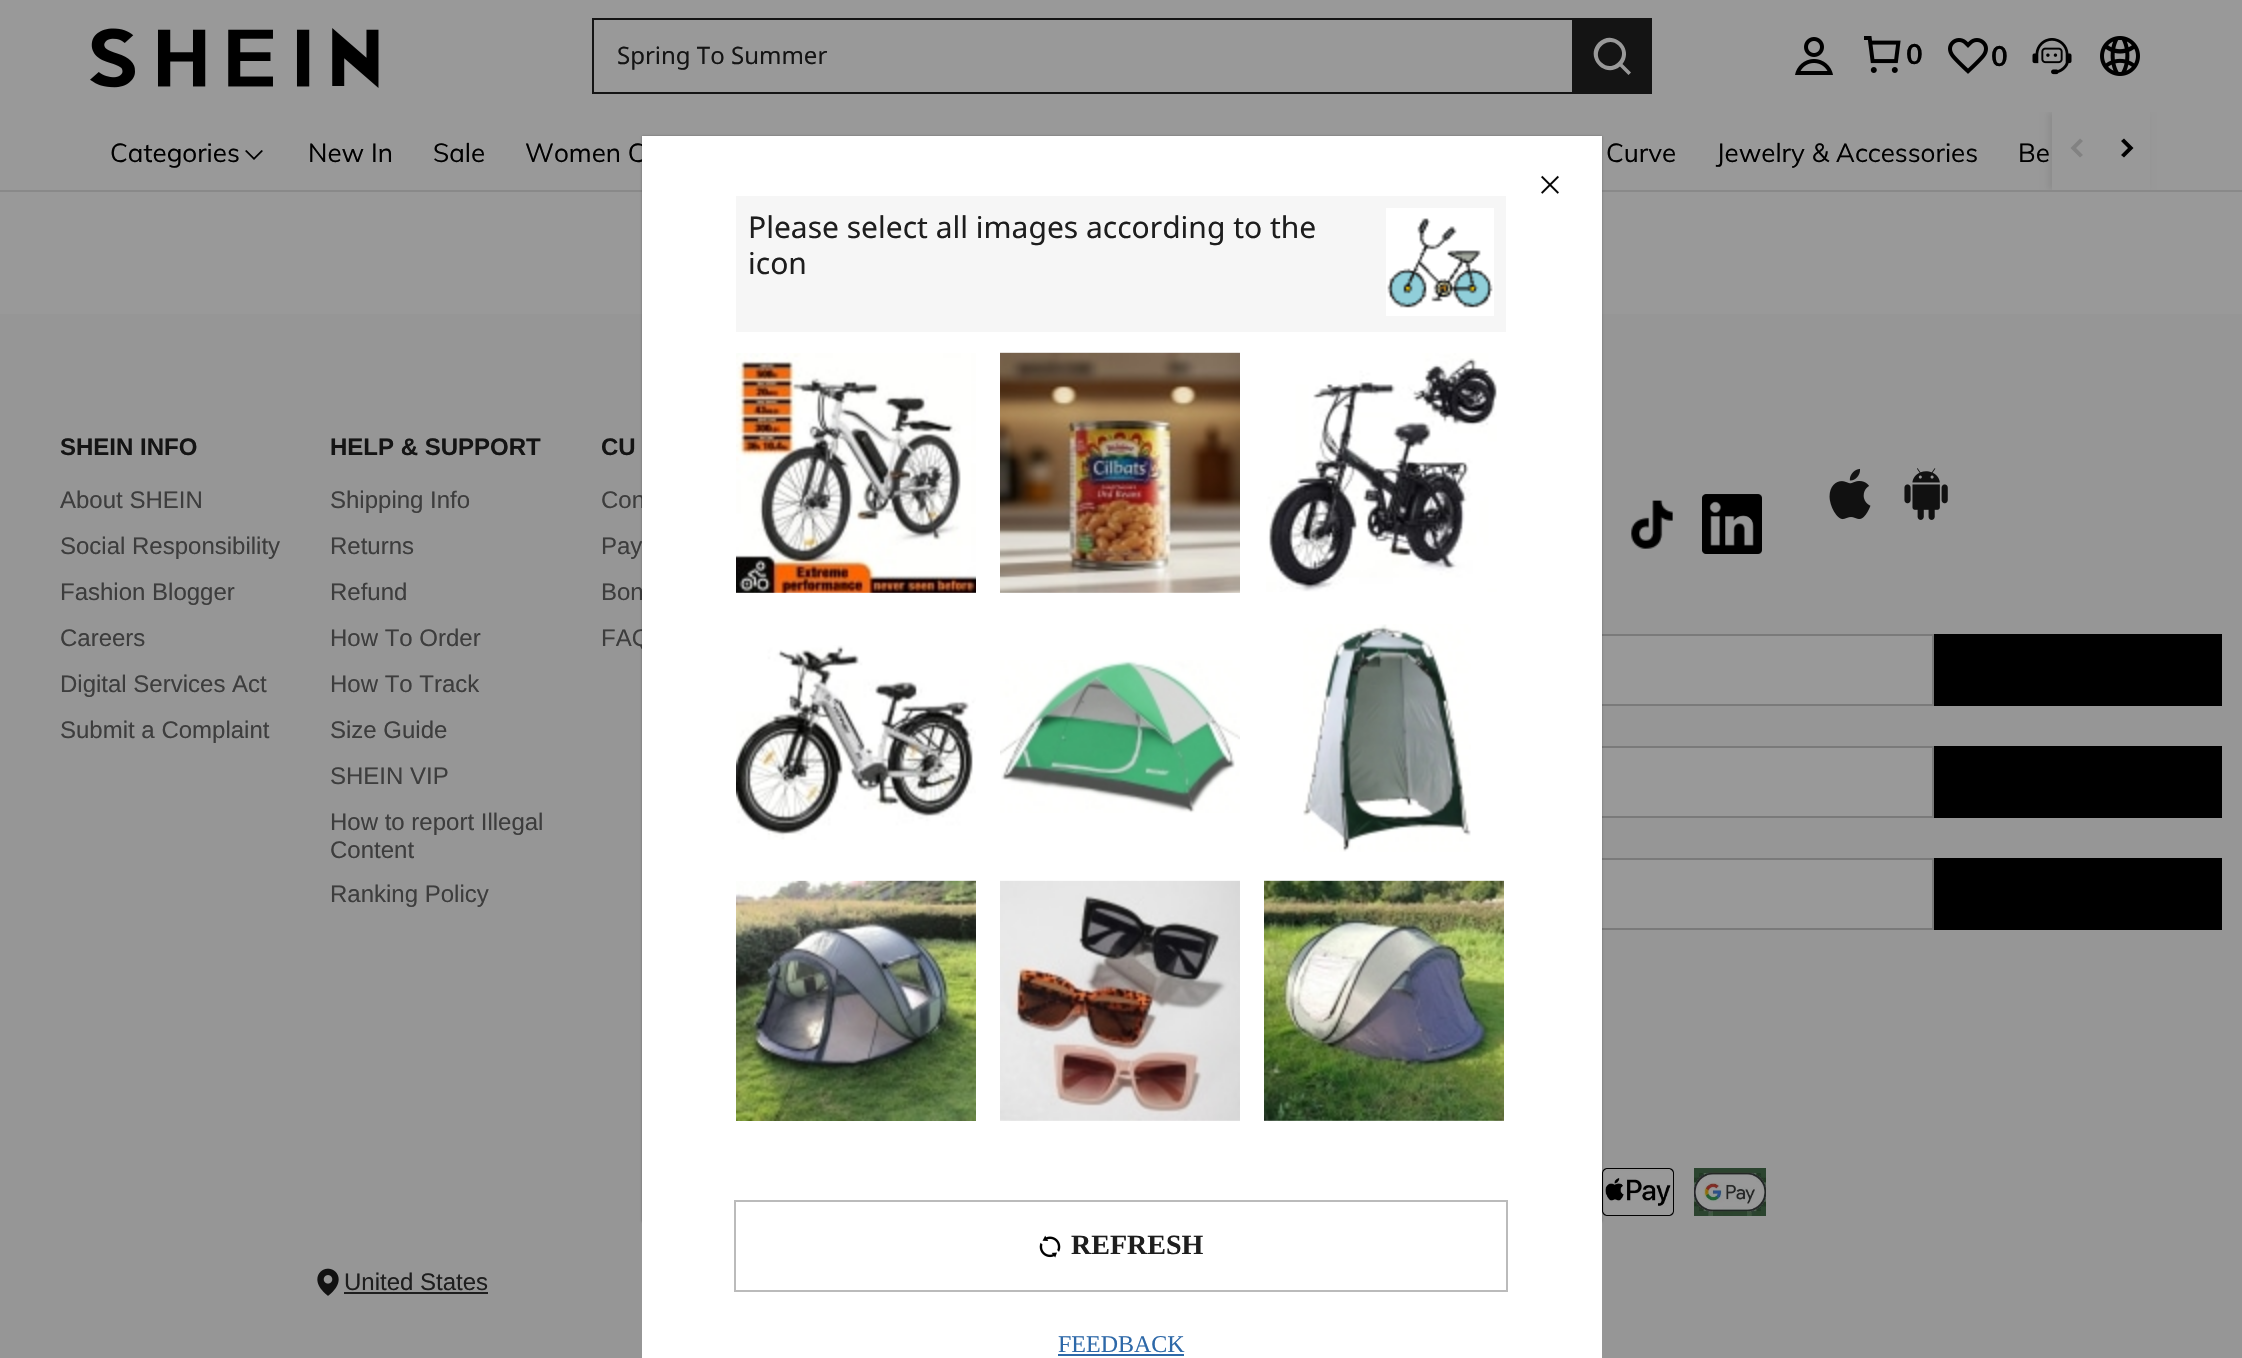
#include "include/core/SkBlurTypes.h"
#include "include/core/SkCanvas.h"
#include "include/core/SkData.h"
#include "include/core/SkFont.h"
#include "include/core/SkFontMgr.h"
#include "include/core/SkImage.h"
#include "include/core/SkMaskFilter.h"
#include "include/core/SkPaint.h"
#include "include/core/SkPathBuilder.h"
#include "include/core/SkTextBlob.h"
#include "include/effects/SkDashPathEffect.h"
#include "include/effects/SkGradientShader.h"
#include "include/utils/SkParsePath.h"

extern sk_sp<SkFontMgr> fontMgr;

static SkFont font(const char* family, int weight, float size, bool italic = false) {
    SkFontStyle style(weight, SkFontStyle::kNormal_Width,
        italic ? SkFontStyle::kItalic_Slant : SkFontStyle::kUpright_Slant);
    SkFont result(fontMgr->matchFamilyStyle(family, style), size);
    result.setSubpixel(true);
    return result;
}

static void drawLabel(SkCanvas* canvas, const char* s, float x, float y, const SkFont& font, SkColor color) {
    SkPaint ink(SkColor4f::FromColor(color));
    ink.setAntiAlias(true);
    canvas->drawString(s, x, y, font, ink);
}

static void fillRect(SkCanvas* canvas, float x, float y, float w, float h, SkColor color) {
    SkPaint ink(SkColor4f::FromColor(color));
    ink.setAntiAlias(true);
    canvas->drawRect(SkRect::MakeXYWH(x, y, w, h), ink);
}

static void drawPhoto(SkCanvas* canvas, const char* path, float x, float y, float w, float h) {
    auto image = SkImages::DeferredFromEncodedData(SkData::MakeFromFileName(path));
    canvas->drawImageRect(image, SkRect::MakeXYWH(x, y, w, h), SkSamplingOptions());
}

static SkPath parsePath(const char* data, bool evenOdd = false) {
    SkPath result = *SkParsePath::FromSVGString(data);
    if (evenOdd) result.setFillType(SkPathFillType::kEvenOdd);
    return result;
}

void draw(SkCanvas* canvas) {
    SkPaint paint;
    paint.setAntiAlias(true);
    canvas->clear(0xFF999999);
    drawPhoto(canvas, "assets/img1.png", 90, 28, 289, 60);
    fillRect(canvas, 592, 18, 980, 2, 0xFF141414);
    fillRect(canvas, 592, 92, 980, 2, 0xFF141414);
    fillRect(canvas, 592, 18, 2, 76, 0xFF141414);
    SkFont font1 = font("Noto Sans", 400, 24);
    drawLabel(canvas, "Spring To Summer", 617, 64, font1, 0xFF141414);
    fillRect(canvas, 1572, 18, 80, 76, 0xFF141414);
    paint.setColor(0xFF999999);
    canvas->drawPath(parsePath("M1598.5 42.5C1612.5 28.5 1635 48 1622.5 64L1631 72.5L1628.5 75L1620 66.5C1604 79 1584.5 56.5 1598.5 42.5ZM1618.5 45.5C1607.5 34.5 1590.5 51.5 1601.5 62.5C1612.5 73.5 1629.5 56.5 1618.5 45.5Z", true), paint);
    drawPhoto(canvas, "assets/img2.png", 1795, 37, 38, 38);
    drawPhoto(canvas, "assets/img3.png", 1864, 36, 37, 37);
    SkFont font2 = font("Muli", 700, 28);
    drawLabel(canvas, "0", 1906, 64, font2, 0xFF000000);
    drawPhoto(canvas, "assets/img4.png", 1948, 38, 40, 36);
    drawLabel(canvas, "0", 1991, 66, font2, 0xFF000000);
    drawPhoto(canvas, "assets/img5.png", 2032, 38, 40, 37);
    drawPhoto(canvas, "assets/img6.png", 2100, 36, 40, 40);
    fillRect(canvas, 0, 190, 2242, 2, 0xFF898989);
    SkFont font3 = font("Muli", 400, 26);
    drawLabel(canvas, "Categories", 110, 162, font3, 0xFF000000);
    paint.setColor(0xFF000000);
    canvas->drawPath(parsePath("M261.5 150L263 151L254 160L245 151L246.5 150L254 157.5Z"), paint);
    drawLabel(canvas, "New In", 308, 162, font3, 0xFF000000);
    drawLabel(canvas, "Sale", 433, 162, font3, 0xFF000000);
    drawLabel(canvas, "Women C", 525, 162, font3, 0xFF000000);
    drawLabel(canvas, "Curve", 1606, 162, font3, 0xFF000000);
    drawLabel(canvas, "Jewelry & Accessories", 1716, 162, font3, 0xFF000000);
    drawLabel(canvas, "Be", 2018, 162, font3, 0xFF000000);
    canvas->save();
    canvas->clipRect(SkRect::MakeXYWH(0, 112, 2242, 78));
    paint.setColor(0x14000000);
    paint.setMaskFilter(SkMaskFilter::MakeBlur(kNormal_SkBlurStyle, 3));
    canvas->drawRect(SkRect::MakeXYWH(2048, 112, 100, 78), paint);
    paint.setMaskFilter(nullptr);
    canvas->restore();
    fillRect(canvas, 2052, 112, 98, 78, 0xFF999999);
    paint.setColor(0xFF828282);
    canvas->drawPath(parsePath("M2080 138.5L2083 141L2076 148L2083 155L2080 157.5L2070.5 148Z", true), paint);
    paint.setColor(0xFF000000);
    canvas->drawPath(parsePath("M2121 141L2124 138.5L2133.5 148L2124 157.5L2121 155L2128 148Z", true), paint);
    fillRect(canvas, 0, 314, 2242, 1044, 0xFF969696);
    SkFont font4 = font("Liberation Sans", 700, 24);
    drawLabel(canvas, "SHEIN INFO", 60, 455, font4, 0xFF141414);
    SkFont font5 = font("Liberation Sans", 400, 24);
    drawLabel(canvas, "About SHEIN", 60, 508, font5, 0xFF3D3D3D);
    drawLabel(canvas, "Social Responsibility", 60, 554, font5, 0xFF3D3D3D);
    drawLabel(canvas, "Fashion Blogger", 60, 600, font5, 0xFF3D3D3D);
    drawLabel(canvas, "Careers", 60, 646, font5, 0xFF3D3D3D);
    drawLabel(canvas, "Digital Services Act", 60, 692, font5, 0xFF3D3D3D);
    drawLabel(canvas, "Submit a Complaint", 60, 738, font5, 0xFF3D3D3D);
    drawLabel(canvas, "HELP & SUPPORT", 330, 455, font4, 0xFF141414);
    drawLabel(canvas, "Shipping Info", 330, 508, font5, 0xFF3D3D3D);
    drawLabel(canvas, "Returns", 330, 554, font5, 0xFF3D3D3D);
    drawLabel(canvas, "Refund", 330, 600, font5, 0xFF3D3D3D);
    drawLabel(canvas, "How To Order", 330, 646, font5, 0xFF3D3D3D);
    drawLabel(canvas, "How To Track", 330, 692, font5, 0xFF3D3D3D);
    drawLabel(canvas, "Size Guide", 330, 738, font5, 0xFF3D3D3D);
    drawLabel(canvas, "SHEIN VIP", 330, 784, font5, 0xFF3D3D3D);
    drawLabel(canvas, "How to report Illegal", 330, 830, font5, 0xFF3D3D3D);
    drawLabel(canvas, "Content", 330, 858, font5, 0xFF3D3D3D);
    drawLabel(canvas, "Ranking Policy", 330, 902, font5, 0xFF3D3D3D);
    drawLabel(canvas, "CU", 601, 455, font4, 0xFF141414);
    drawLabel(canvas, "Con", 601, 508, font5, 0xFF3D3D3D);
    drawLabel(canvas, "Pay", 601, 554, font5, 0xFF3D3D3D);
    drawLabel(canvas, "Bon", 601, 600, font5, 0xFF3D3D3D);
    drawLabel(canvas, "FAQ", 601, 646, font5, 0xFF3D3D3D);
    drawPhoto(canvas, "assets/img7.png", 1631, 500, 42, 49);
    drawPhoto(canvas, "assets/img8.png", 1702, 494, 60, 60);
    drawPhoto(canvas, "assets/img9.png", 1829, 468, 42, 52);
    drawPhoto(canvas, "assets/img10.png", 1904, 468, 44, 52);
    fillRect(canvas, 1602, 636, 330, 68, 0xFF999999);
    paint.setStroke(true);
    paint.setStrokeWidth(2);
    paint.setColor(0xFF7A7A7A);
    canvas->drawRect(SkRect::MakeXYWH(1143, 635, 790, 70), paint);
    fillRect(canvas, 1934, 634, 288, 72, 0xFF000000);
    fillRect(canvas, 1602, 748, 330, 68, 0xFF999999);
    canvas->drawRect(SkRect::MakeXYWH(1303, 747, 630, 70), paint);
    fillRect(canvas, 1934, 746, 288, 72, 0xFF000000);
    fillRect(canvas, 1602, 860, 330, 68, 0xFF999999);
    canvas->drawRect(SkRect::MakeXYWH(1303, 859, 630, 70), paint);
    fillRect(canvas, 1934, 858, 288, 72, 0xFF000000);
    drawPhoto(canvas, "assets/img11.png", 1602, 1168, 72, 48);
    drawPhoto(canvas, "assets/img12.png", 1694, 1168, 72, 48);
    drawPhoto(canvas, "assets/img13.png", 317, 1268, 22, 28);
    drawLabel(canvas, "United States", 344, 1290, font5, 0xFF1E1E1E);
    fillRect(canvas, 344, 1292, 144, 2, 0xFF1E1E1E);
    paint.setStroke(false);
    paint.setColor(0x4D000000);
    paint.setMaskFilter(SkMaskFilter::MakeBlur(kNormal_SkBlurStyle, 1));
    canvas->drawRect(SkRect::MakeXYWH(642, 136, 960, 1086), paint);
    paint.setMaskFilter(nullptr);
    fillRect(canvas, 642, 136, 960, 1222, 0xFFFFFFFF);
    drawPhoto(canvas, "assets/img14.png", 1541, 175, 18, 19);
    fillRect(canvas, 736, 196, 770, 136, 0xFFF6F6F6);
    SkFont font6 = font("Noto Sans", 400, 30);
    drawLabel(canvas, "Please select all images according to the", 748, 238, font6, 0xFF1E1E1E);
    drawLabel(canvas, "icon", 748, 274, font6, 0xFF1E1E1E);
    fillRect(canvas, 1386, 208, 108, 108, 0xFFFFFFFF);
    drawPhoto(canvas, "assets/img15.png", 1387, 218, 106, 90);
    drawPhoto(canvas, "assets/img16.png", 736, 353, 240, 240);
    drawPhoto(canvas, "assets/img17.png", 1000, 352, 240, 241);
    drawPhoto(canvas, "assets/img18.png", 1266, 353, 231, 239);
    drawPhoto(canvas, "assets/img19.png", 736, 645, 240, 195);
    drawPhoto(canvas, "assets/img20.png", 1000, 660, 240, 153);
    drawPhoto(canvas, "assets/img21.png", 1303, 624, 168, 228);
    drawPhoto(canvas, "assets/img22.png", 736, 880, 240, 241);
    drawPhoto(canvas, "assets/img23.png", 1000, 880, 240, 241);
    drawPhoto(canvas, "assets/img24.png", 1264, 880, 240, 241);
    paint.setStroke(true);
    paint.setColor(0xFFBBBBBB);
    canvas->drawRect(SkRect::MakeXYWH(735, 1201, 772, 90), paint);
    drawPhoto(canvas, "assets/img25.png", 1039, 1235, 22, 23);
    SkFont font7 = font("Liberation Serif", 700, 28);
    drawLabel(canvas, "REFRESH", 1071, 1254, font7, 0xFF1E1E1E);
    SkFont font8 = font("Liberation Serif", 400, 24);
    drawLabel(canvas, "FEEDBACK", 1058, 1352, font8, 0xFF2D68A8);
    fillRect(canvas, 1058, 1354, 126, 2, 0xFF2D68A8);
}
